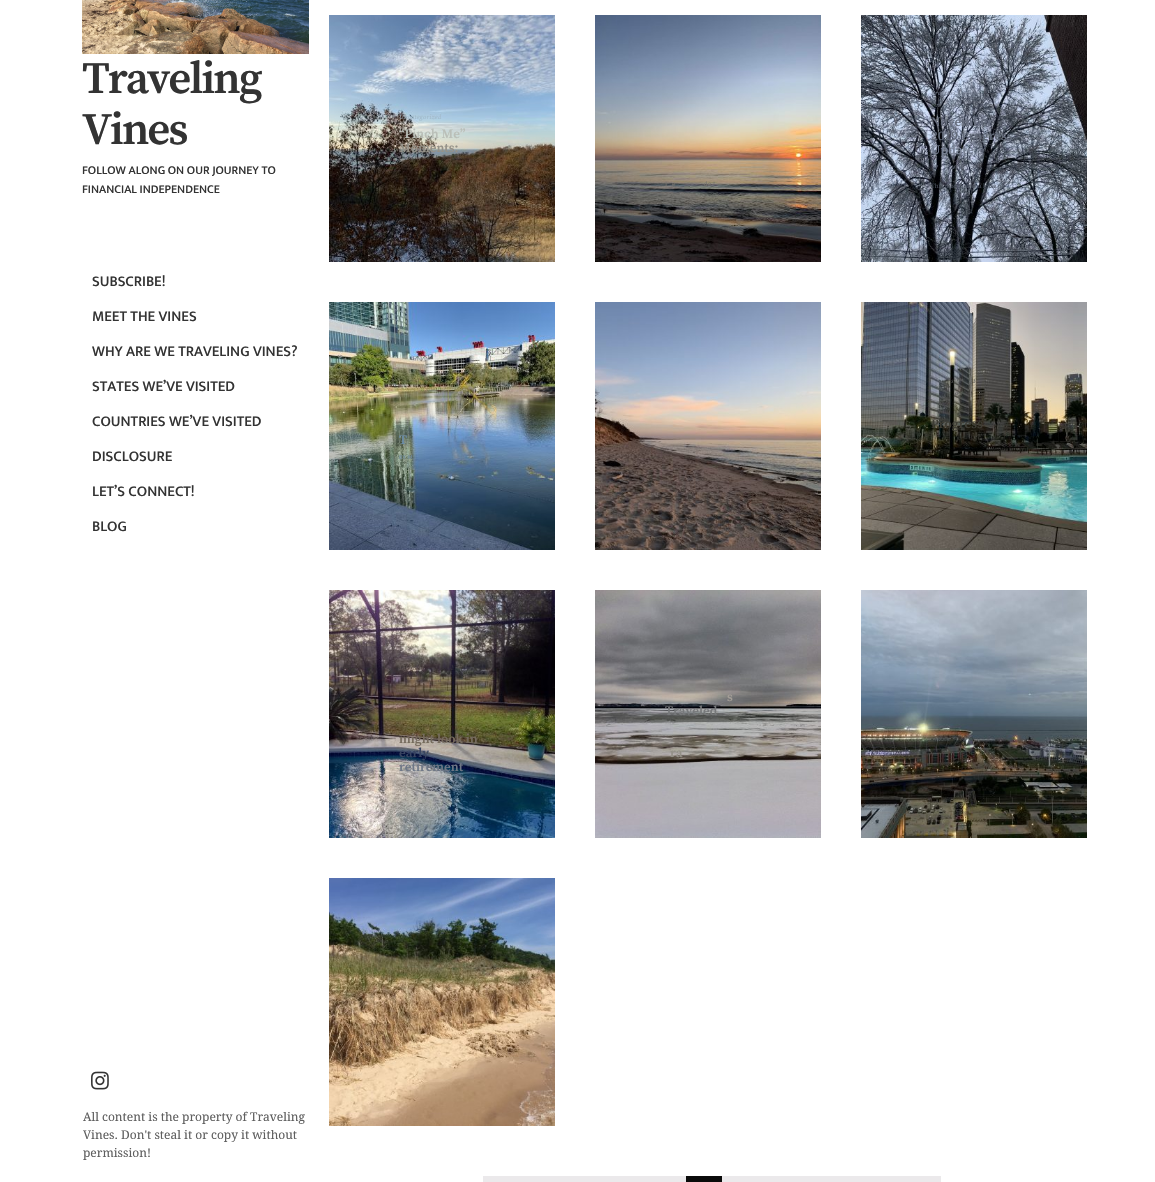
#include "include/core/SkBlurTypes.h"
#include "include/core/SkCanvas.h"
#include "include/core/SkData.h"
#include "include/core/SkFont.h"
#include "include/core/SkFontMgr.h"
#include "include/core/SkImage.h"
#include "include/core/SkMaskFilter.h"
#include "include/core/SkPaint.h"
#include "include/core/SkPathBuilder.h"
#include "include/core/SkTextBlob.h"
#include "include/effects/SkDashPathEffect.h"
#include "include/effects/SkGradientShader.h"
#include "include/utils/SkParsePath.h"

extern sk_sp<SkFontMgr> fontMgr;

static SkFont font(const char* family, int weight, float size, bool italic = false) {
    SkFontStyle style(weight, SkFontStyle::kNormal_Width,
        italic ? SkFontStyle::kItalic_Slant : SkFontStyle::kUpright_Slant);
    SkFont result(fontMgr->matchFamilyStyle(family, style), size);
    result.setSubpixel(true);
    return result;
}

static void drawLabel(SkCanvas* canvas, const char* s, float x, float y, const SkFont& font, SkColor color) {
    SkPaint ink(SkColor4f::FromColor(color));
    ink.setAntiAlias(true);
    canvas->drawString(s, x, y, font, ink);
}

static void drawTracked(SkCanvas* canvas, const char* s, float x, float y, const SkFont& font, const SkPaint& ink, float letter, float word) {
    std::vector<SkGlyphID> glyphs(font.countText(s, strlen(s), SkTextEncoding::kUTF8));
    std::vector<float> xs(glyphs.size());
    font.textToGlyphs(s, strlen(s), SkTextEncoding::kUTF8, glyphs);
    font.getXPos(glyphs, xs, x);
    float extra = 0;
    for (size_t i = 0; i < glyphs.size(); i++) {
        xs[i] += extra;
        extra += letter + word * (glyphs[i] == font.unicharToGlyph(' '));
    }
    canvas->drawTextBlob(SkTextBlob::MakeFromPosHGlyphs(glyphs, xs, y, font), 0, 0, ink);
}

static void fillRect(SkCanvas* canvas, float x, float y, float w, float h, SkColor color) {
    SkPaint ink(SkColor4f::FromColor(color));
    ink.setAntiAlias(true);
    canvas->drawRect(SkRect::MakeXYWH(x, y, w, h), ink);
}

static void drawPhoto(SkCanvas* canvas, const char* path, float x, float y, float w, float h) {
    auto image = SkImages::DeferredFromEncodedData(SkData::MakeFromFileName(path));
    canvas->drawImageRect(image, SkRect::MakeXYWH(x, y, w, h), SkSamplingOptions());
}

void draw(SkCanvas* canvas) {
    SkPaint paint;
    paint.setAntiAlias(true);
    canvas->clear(0xFFFFFFFF);
    drawPhoto(canvas, "assets/img1.png", 82, 0, 227, 54);
    SkFont font1 = font("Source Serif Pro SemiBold", 600, 45);
    paint.setColor(0xFF333333);
    drawTracked(canvas, "Traveling", 82, 93, font1, paint, -2, 0);
    drawTracked(canvas, "Vines", 82, 144, font1, paint, -2, 0);
    SkFont font2 = font("Ek Mukta", 500, 12);
    drawLabel(canvas, "FOLLOW ALONG ON OUR JOURNEY TO", 82, 174, font2, 0xFF333333);
    drawLabel(canvas, "FINANCIAL INDEPENDENCE", 82, 193, font2, 0xFF333333);
    SkFont font3 = font("Ek Mukta", 500, 15);
    drawLabel(canvas, "SUBSCRIBE!", 92, 286, font3, 0xFF333333);
    drawLabel(canvas, "MEET THE VINES", 92, 321, font3, 0xFF333333);
    drawLabel(canvas, "WHY ARE WE TRAVELING VINES?", 92, 356, font3, 0xFF333333);
    drawLabel(canvas, "STATES WE’VE VISITED", 92, 391, font3, 0xFF333333);
    drawLabel(canvas, "COUNTRIES WE’VE VISITED", 92, 426, font3, 0xFF333333);
    drawLabel(canvas, "DISCLOSURE", 92, 461, font3, 0xFF333333);
    drawLabel(canvas, "LET’S CONNECT!", 92, 496, font3, 0xFF333333);
    drawLabel(canvas, "BLOG", 92, 531, font3, 0xFF333333);
    drawPhoto(canvas, "assets/img2.png", 91, 1071, 18, 19);
    SkFont font4 = font("Droid Serif", 400, 12);
    drawLabel(canvas, "All content is the property of Traveling", 83, 1121, font4, 0xFF5F5F5F);
    drawLabel(canvas, "Vines. Don't steal it or copy it without", 83, 1139, font4, 0xFF5F5F5F);
    drawLabel(canvas, "permission!", 83, 1157, font4, 0xFF5F5F5F);
    drawPhoto(canvas, "assets/img3.png", 329, 15, 226, 247);
    SkFont font5 = font("Source Serif Pro", 400, 6.5f, true);
    paint.setColor(0xFFA0B8C8);
    drawTracked(canvas, "Uncategorized", 399, 119, font5, paint, 0.25f, 0);
    SkFont font6 = font("Source Serif Pro SemiBold", 600, 13);
    drawLabel(canvas, "“Pinch Me”", 399, 138, font6, 0xFFBABFB8);
    drawLabel(canvas, "Moments:", 399, 152, font6, 0xFF949188);
    drawPhoto(canvas, "assets/img4.png", 861, 15, 226, 247);
    paint.setColor(0xFF788193);
    drawTracked(canvas, "Progress Update", 931, 95, font5, paint, 0.25f, 0);
    SkFont font7 = font("Source Serif Pro", 400, 8);
    drawLabel(canvas, ",", 979, 95, font7, 0xFF6E7786);
    paint.setColor(0xFF626A78);
    drawTracked(canvas, "n", 936, 107, font5, paint, 0.25f, 0);
    drawTracked(canvas, "go", 952, 107, font5, paint, 0.25f, 0);
    drawLabel(canvas, "November", 931, 126, font6, 0xFF676E7E);
    drawLabel(canvas, "2019 Progress", 931, 140, font6, 0xFF626A78);
    drawLabel(canvas, "Update", 931, 154, font6, 0xFF788193);
    SkFont font8 = font("Ek Mukta", 500, 6);
    paint.setColor(0xFF5E6472);
    drawTracked(canvas, "Y", 935, 169, font8, paint, 0.25f, 0);
    drawTracked(canvas, "VI", 952, 169, font8, paint, 0.25f, 0);
    SkFont font9 = font("Droid Serif", 400, 6);
    drawLabel(canvas, "This month was a haze of", 931, 188, font9, 0xFF4C535F);
    drawPhoto(canvas, "assets/img5.png", 595, 15, 226, 247);
    drawLabel(canvas, "I", 665, 186, font9, 0xFF74716B);
    drawLabel(canvas, "e", 672, 186, font9, 0xFF74716B);
    drawLabel(canvas, "de “", 704, 186, font9, 0xFF74716B);
    drawPhoto(canvas, "assets/img6.png", 329, 302, 226, 248);
    paint.setColor(0xFF66693F);
    drawTracked(canvas, "L", 417, 383, font5, paint, 0.25f, 0);
    drawTracked(canvas, "le", 436, 383, font5, paint, 0.25f, 0);
    drawLabel(canvas, ",", 441, 383, font7, 0xFF494329);
    drawLabel(canvas, "T", 399, 444, font6, 0xFF6C8DA7);
    paint.setColor(0xFF6C8796);
    drawTracked(canvas, "BY M", 399, 459, font8, paint, 0.25f, 0);
    drawPhoto(canvas, "assets/img7.png", 595, 302, 226, 248);
    drawPhoto(canvas, "assets/img8.png", 861, 302, 226, 248);
    paint.setColor(0xFF595B5B);
    drawTracked(canvas, "s", 951, 383, font5, paint, 0.25f, 0);
    drawTracked(canvas, "t", 973, 383, font5, paint, 0.25f, 0);
    paint.setColor(0xFF535554);
    drawTracked(canvas, "o", 955, 395, font5, paint, 0.25f, 0);
    drawLabel(canvas, "1", 995, 414, font6, 0xFF41423B);
    drawLabel(canvas, "Progress", 931, 428, font6, 0xFF3E3D35);
    drawLabel(canvas, "The", 931, 476, font9, 0xFF29535C);
    drawPhoto(canvas, "assets/img9.png", 329, 590, 226, 248);
    paint.setColor(0xFF635855);
    drawTracked(canvas, "Lifestyle", 399, 670, font5, paint, 0.25f, 0);
    paint.setColor(0xFF3C383E);
    drawTracked(canvas, "l", 451, 670, font5, paint, 0.25f, 0);
    paint.setColor(0xFF65574B);
    drawTracked(canvas, "d", 438, 682, font5, paint, 0.25f, 0);
    drawLabel(canvas, "might look in", 399, 743, font6, 0xFF756B5D);
    drawLabel(canvas, "early", 399, 757, font6, 0xFF384461);
    drawLabel(canvas, "retirement", 399, 771, font6, 0xFF6E7786);
    drawPhoto(canvas, "assets/img10.png", 595, 590, 226, 248);
    drawLabel(canvas, "s", 727, 701, font6, 0xFFA39D96);
    drawLabel(canvas, "Traveled", 665, 715, font6, 0xFF77797B);
    drawLabel(canvas, "ra", 670, 757, font6, 0xFF949188);
    drawPhoto(canvas, "assets/img11.png", 861, 590, 226, 248);
    drawPhoto(canvas, "assets/img12.png", 329, 878, 226, 248);
    drawLabel(canvas, "Ov", 399, 1037, font9, 0xFFCDAB81);
    drawLabel(canvas, "w", 452, 1037, font9, 0xFFCDAB81);
    drawLabel(canvas, "ie", 467, 1037, font9, 0xFFCDAB81);
    drawLabel(canvas, "o", 399, 1047, font9, 0xFFE9CAA1);
    drawLabel(canvas, ".", 468, 1047, font9, 0xFFE9CAA1);
    fillRect(canvas, 483, 1176, 203, 6, 0xFFEBE9EB);
    fillRect(canvas, 686, 1176, 36, 6, 0xFF0A0A0A);
    fillRect(canvas, 722, 1176, 219, 6, 0xFFEBE9EB);
}
